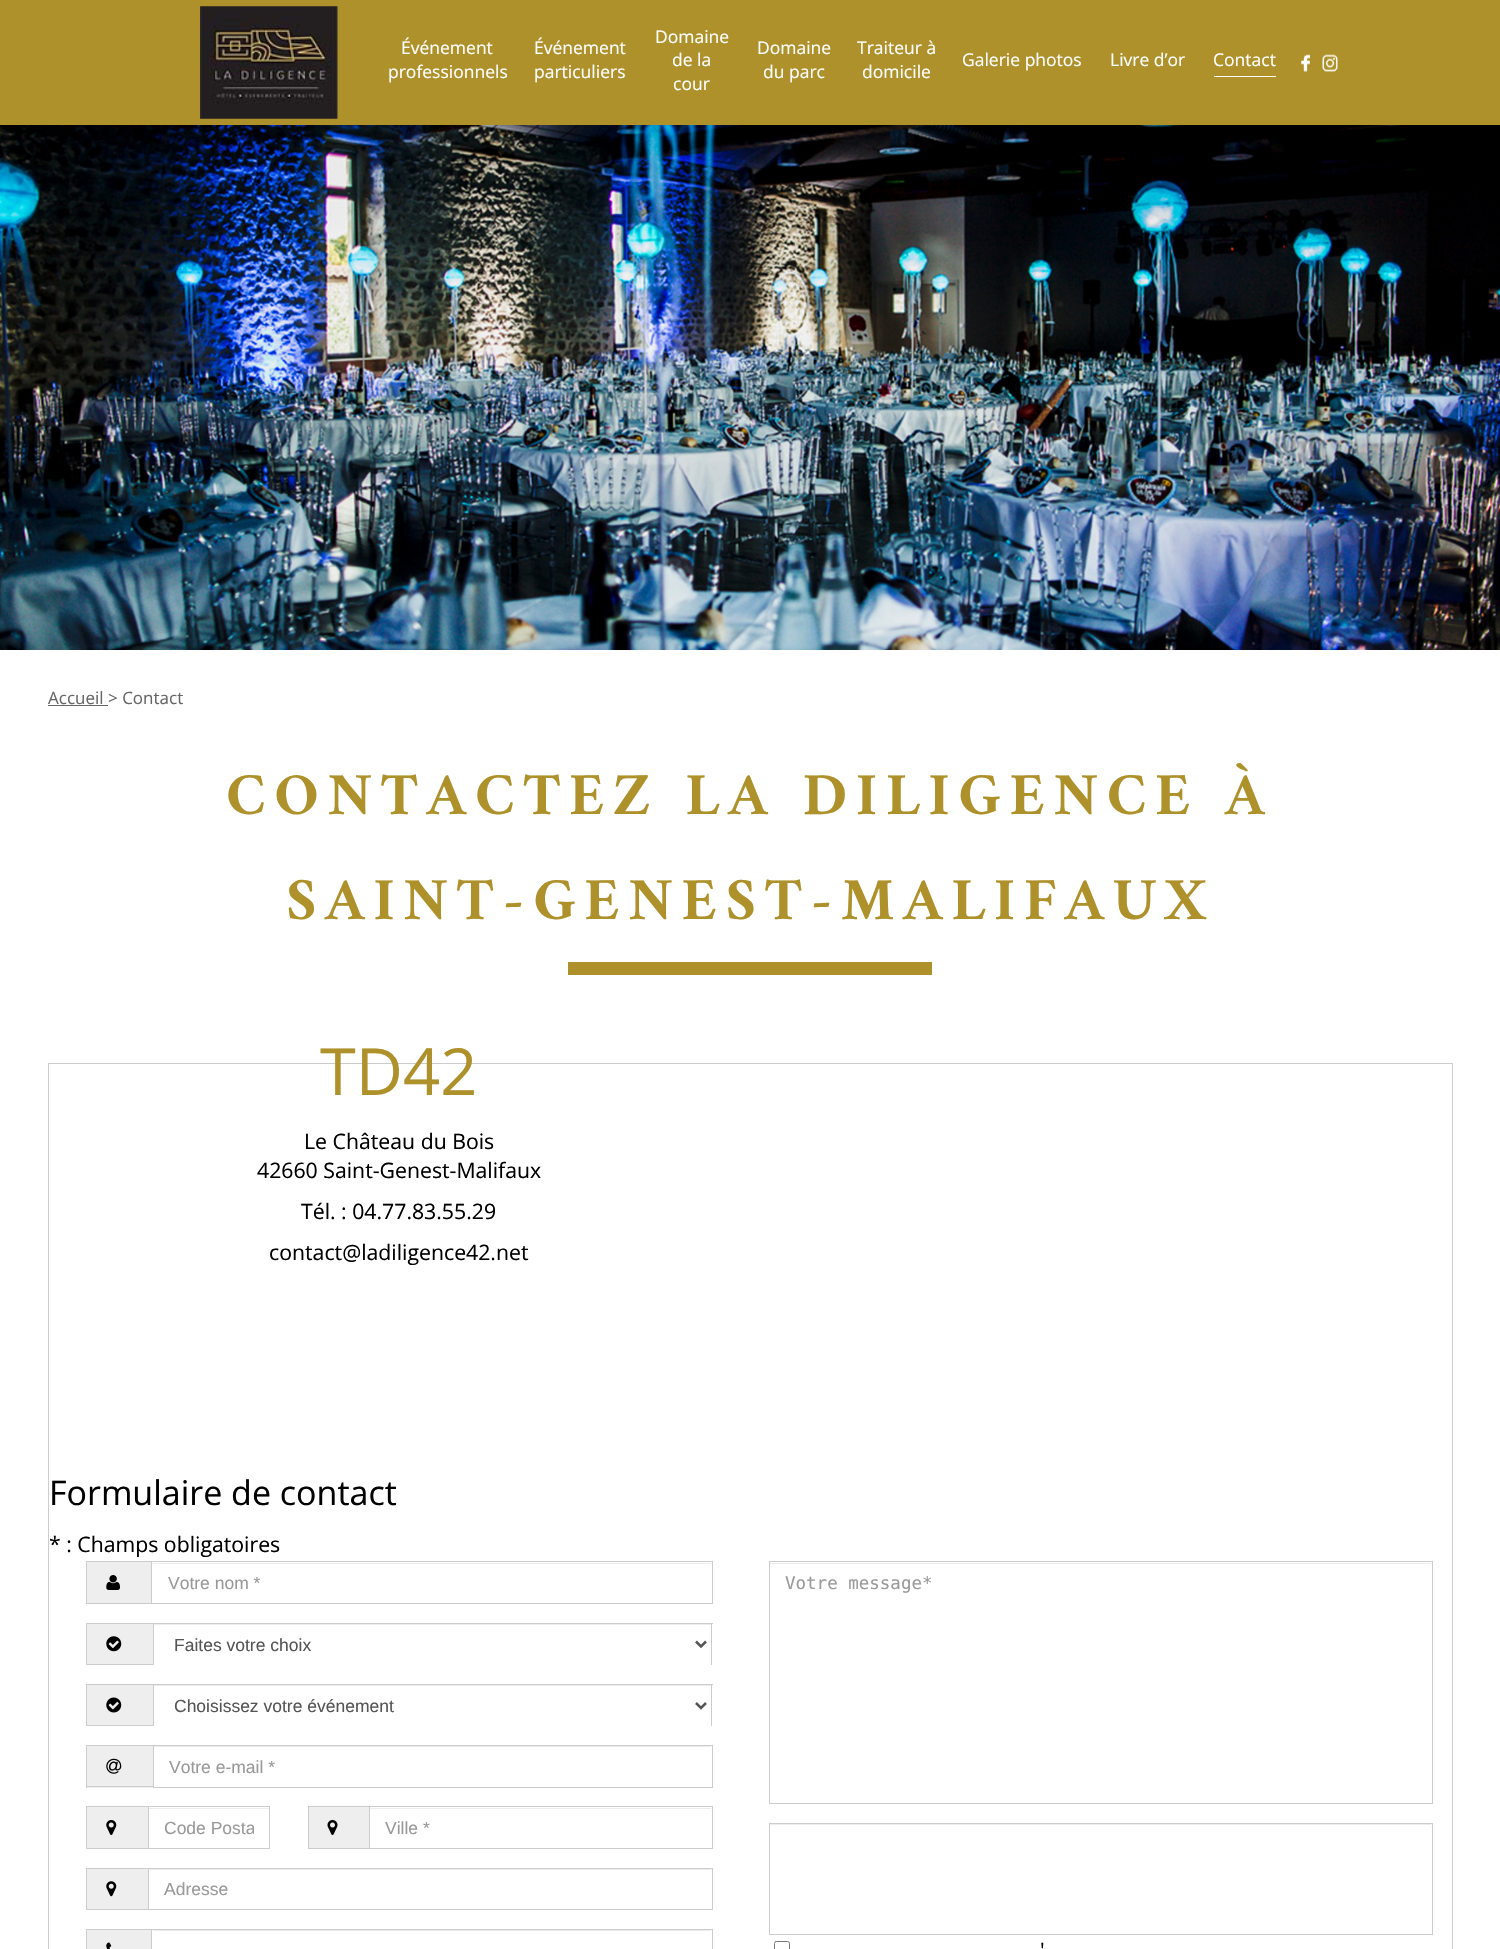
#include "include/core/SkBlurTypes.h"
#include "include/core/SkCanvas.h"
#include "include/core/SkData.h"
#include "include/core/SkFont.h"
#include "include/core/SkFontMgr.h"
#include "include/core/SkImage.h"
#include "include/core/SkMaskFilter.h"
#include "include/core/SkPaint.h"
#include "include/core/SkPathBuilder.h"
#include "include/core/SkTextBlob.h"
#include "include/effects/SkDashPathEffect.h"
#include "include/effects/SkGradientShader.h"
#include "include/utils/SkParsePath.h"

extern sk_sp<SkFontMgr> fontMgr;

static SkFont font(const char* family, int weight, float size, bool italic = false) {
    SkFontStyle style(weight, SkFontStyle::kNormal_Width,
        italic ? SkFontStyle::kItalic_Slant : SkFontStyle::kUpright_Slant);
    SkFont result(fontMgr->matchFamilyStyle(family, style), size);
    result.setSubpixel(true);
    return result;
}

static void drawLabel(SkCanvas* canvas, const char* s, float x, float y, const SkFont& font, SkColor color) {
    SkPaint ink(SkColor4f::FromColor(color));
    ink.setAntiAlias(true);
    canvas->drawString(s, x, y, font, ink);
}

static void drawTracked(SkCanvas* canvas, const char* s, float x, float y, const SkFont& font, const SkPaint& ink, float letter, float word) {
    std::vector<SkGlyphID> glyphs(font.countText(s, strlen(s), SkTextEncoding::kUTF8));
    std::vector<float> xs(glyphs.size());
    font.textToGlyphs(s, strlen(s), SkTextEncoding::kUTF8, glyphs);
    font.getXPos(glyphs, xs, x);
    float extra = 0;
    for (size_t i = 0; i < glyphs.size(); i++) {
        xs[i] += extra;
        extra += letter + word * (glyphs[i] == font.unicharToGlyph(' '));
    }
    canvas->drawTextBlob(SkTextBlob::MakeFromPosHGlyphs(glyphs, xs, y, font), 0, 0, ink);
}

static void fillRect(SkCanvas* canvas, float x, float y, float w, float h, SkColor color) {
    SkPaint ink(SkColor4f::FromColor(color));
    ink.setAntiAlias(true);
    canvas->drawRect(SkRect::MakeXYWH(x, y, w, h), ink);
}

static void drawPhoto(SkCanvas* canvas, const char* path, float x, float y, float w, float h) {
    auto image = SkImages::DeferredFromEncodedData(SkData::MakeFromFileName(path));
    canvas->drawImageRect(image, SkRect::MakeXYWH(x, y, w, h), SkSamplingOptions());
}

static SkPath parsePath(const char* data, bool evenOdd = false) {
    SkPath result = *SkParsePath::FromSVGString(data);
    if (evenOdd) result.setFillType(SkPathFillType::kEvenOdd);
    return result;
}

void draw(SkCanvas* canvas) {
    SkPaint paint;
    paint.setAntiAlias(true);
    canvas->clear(0xFFFFFFFF);
    fillRect(canvas, 0, 0, 1500, 125, 0xFFAE912B);
    drawPhoto(canvas, "assets/img1.png", 200, 6, 138, 113);
    SkFont font1 = font("Open Sans", 400, 17.5f);
    drawLabel(canvas, "Événement", 401, 54, font1, 0xFFFFFFFF);
    drawLabel(canvas, "professionnels", 388, 78, font1, 0xFFFFFFFF);
    drawLabel(canvas, "Événement", 534, 54, font1, 0xFFFFFFFF);
    drawLabel(canvas, "particuliers", 534, 78, font1, 0xFFFFFFFF);
    drawLabel(canvas, "Domaine", 655, 43, font1, 0xFFFFFFFF);
    drawLabel(canvas, "de la", 672, 66, font1, 0xFFFFFFFF);
    drawLabel(canvas, "cour", 673, 90, font1, 0xFFFFFFFF);
    drawLabel(canvas, "Domaine", 757, 54, font1, 0xFFFFFFFF);
    drawLabel(canvas, "du parc", 763, 78, font1, 0xFFFFFFFF);
    drawLabel(canvas, "Traiteur à", 857, 54, font1, 0xFFFFFFFF);
    drawLabel(canvas, "domicile", 862, 78, font1, 0xFFFFFFFF);
    drawLabel(canvas, "Galerie photos", 962, 66, font1, 0xFFFFFFFF);
    drawLabel(canvas, "Livre d’or", 1110, 66, font1, 0xFFFFFFFF);
    fillRect(canvas, 1214, 76, 62, 1, 0xFFFFFFFF);
    drawLabel(canvas, "Contact", 1213, 66, font1, 0xFFFFFFFF);
    drawPhoto(canvas, "assets/img2.png", 1301, 54, 9, 18);
    drawPhoto(canvas, "assets/img3.png", 1322, 54, 16, 18);
    drawPhoto(canvas, "assets/img4.png", 0, 125, 1500, 525);
    SkFont font2 = font("Open Sans", 400, 17);
    drawLabel(canvas, "Accueil > Contact", 48, 704, font2, 0xFF666666);
    fillRect(canvas, 48, 705, 60, 1, 0xFF666666);
    fillRect(canvas, 568, 962, 364, 13, 0xFFAE912B);
    SkFont font3 = font("Amiri", 700, 60);
    paint.setColor(0xFFAE912B);
    drawTracked(canvas, "CONTACTEZ LA DILIGENCE À", 226, 814, font3, paint, 8.75f, 0);
    drawTracked(canvas, "SAINT-GENEST-MALIFAUX", 286, 919, font3, paint, 8.75f, 0);
    paint.setStroke(true);
    paint.setStrokeWidth(1);
    paint.setColor(0xFFCCCCCC);
    canvas->drawRect(SkRect::MakeXYWH(48.5f, 1063.5f, 1404, 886), paint);
    SkFont font4 = font("Open Sans", 400, 65);
    drawLabel(canvas, "TD42", 320, 1095, font4, 0xFFAE912B);
    SkFont font5 = font("Open Sans", 400, 21.25f);
    drawLabel(canvas, "Le Château du Bois", 304, 1149, font5, 0xFF000000);
    drawLabel(canvas, "42660 Saint-Genest-Malifaux", 257, 1178, font5, 0xFF000000);
    drawLabel(canvas, "Tél. : 04.77.83.55.29", 301, 1219, font5, 0xFF000000);
    drawLabel(canvas, "contact@ladiligence42.net", 269, 1260, font5, 0xFF000000);
    SkFont font6 = font("Open Sans", 400, 34);
    drawLabel(canvas, "Formulaire de contact", 49, 1505, font6, 0xFF000000);
    drawLabel(canvas, "* : Champs obligatoires", 49, 1552, font5, 0xFF000000);
    fillRect(canvas, 87, 1562, 64, 41, 0xFFEEEEEE);
    fillRect(canvas, 86, 1561, 65, 1, 0xFFCCCCCC);
    fillRect(canvas, 86, 1603, 65, 1, 0xFFCCCCCC);
    fillRect(canvas, 86, 1561, 1, 43, 0xFFCCCCCC);
    drawPhoto(canvas, "assets/img5.png", 106, 1575, 14, 15);
    fillRect(canvas, 153, 1563, 558, 1, 0xFFECECEC);
    canvas->drawRect(SkRect::MakeXYWH(151.5f, 1561.5f, 561, 42), paint);
    SkFont font7 = font("Liberation Sans", 400, 17.5f);
    drawLabel(canvas, "Votre nom *", 168, 1589, font7, 0xFF999999);
    fillRect(canvas, 87, 1624, 66, 40, 0xFFEEEEEE);
    fillRect(canvas, 86, 1623, 627, 1, 0xFFCCCCCC);
    fillRect(canvas, 86, 1664, 67, 1, 0xFFCCCCCC);
    fillRect(canvas, 86, 1623, 1, 42, 0xFFCCCCCC);
    drawPhoto(canvas, "assets/img6.png", 106, 1636, 16, 16);
    fillRect(canvas, 154, 1624, 557, 1, 0xFFECECEC);
    fillRect(canvas, 711, 1623, 1, 42, 0xFFCCCCCC);
    fillRect(canvas, 153, 1623, 1, 42, 0xFFCCCCCC);
    paint.setStrokeWidth(2.5f);
    paint.setColor(0xFF555555);
    canvas->drawPath(parsePath("M696 1641.5L701 1646.5L706 1641.5"), paint);
    drawLabel(canvas, "Faites votre choix", 174, 1651, font7, 0xFF555555);
    fillRect(canvas, 87, 1685, 66, 40, 0xFFEEEEEE);
    fillRect(canvas, 86, 1684, 627, 1, 0xFFCCCCCC);
    fillRect(canvas, 86, 1725, 67, 1, 0xFFCCCCCC);
    fillRect(canvas, 86, 1684, 1, 42, 0xFFCCCCCC);
    drawPhoto(canvas, "assets/img7.png", 106, 1697, 16, 16);
    fillRect(canvas, 154, 1685, 557, 1, 0xFFECECEC);
    fillRect(canvas, 711, 1684, 1, 42, 0xFFCCCCCC);
    fillRect(canvas, 153, 1684, 1, 42, 0xFFCCCCCC);
    canvas->drawPath(parsePath("M696 1703L701 1708L706 1703"), paint);
    drawLabel(canvas, "Choisissez votre événement", 174, 1712, font7, 0xFF555555);
    fillRect(canvas, 87, 1746, 66, 42, 0xFFEEEEEE);
    fillRect(canvas, 86, 1745, 67, 1, 0xFFCCCCCC);
    fillRect(canvas, 86, 1786, 67, 1, 0xFFCCCCCC);
    fillRect(canvas, 86, 1745, 1, 43, 0xFFCCCCCC);
    drawPhoto(canvas, "assets/img8.png", 106, 1758, 16, 16);
    fillRect(canvas, 154, 1746, 557, 1, 0xFFECECEC);
    paint.setStrokeWidth(1);
    paint.setColor(0xFFCCCCCC);
    canvas->drawRect(SkRect::MakeXYWH(153.5f, 1745.5f, 559, 42), paint);
    drawLabel(canvas, "Votre e-mail *", 169, 1773, font7, 0xFF999999);
    fillRect(canvas, 87, 1807, 61, 41, 0xFFEEEEEE);
    fillRect(canvas, 86, 1806, 62, 1, 0xFFCCCCCC);
    fillRect(canvas, 86, 1848, 62, 1, 0xFFCCCCCC);
    fillRect(canvas, 86, 1806, 1, 43, 0xFFCCCCCC);
    drawPhoto(canvas, "assets/img9.png", 106, 1820, 11, 15);
    fillRect(canvas, 149, 1808, 120, 1, 0xFFECECEC);
    canvas->drawRect(SkRect::MakeXYWH(148.5f, 1806.5f, 121, 42), paint);
    canvas->save();
    canvas->clipRect(SkRect::MakeXYWH(164, 1818, 90, 20));
    drawLabel(canvas, "Code Posta", 164, 1834, font7, 0xFF999999);
    canvas->restore();
    fillRect(canvas, 309, 1807, 60, 41, 0xFFEEEEEE);
    fillRect(canvas, 308, 1806, 61, 1, 0xFFCCCCCC);
    fillRect(canvas, 308, 1848, 61, 1, 0xFFCCCCCC);
    fillRect(canvas, 308, 1806, 1, 43, 0xFFCCCCCC);
    drawPhoto(canvas, "assets/img10.png", 327, 1820, 11, 15);
    fillRect(canvas, 370, 1808, 341, 1, 0xFFECECEC);
    canvas->drawRect(SkRect::MakeXYWH(369.5f, 1806.5f, 343, 42), paint);
    drawLabel(canvas, "Ville *", 385, 1834, font7, 0xFF999999);
    fillRect(canvas, 87, 1869, 61, 40, 0xFFEEEEEE);
    fillRect(canvas, 86, 1868, 62, 1, 0xFFCCCCCC);
    fillRect(canvas, 86, 1909, 62, 1, 0xFFCCCCCC);
    fillRect(canvas, 86, 1868, 1, 42, 0xFFCCCCCC);
    drawPhoto(canvas, "assets/img11.png", 106, 1881, 11, 16);
    fillRect(canvas, 149, 1869, 562, 1, 0xFFECECEC);
    canvas->drawRect(SkRect::MakeXYWH(148.5f, 1868.5f, 564, 41), paint);
    drawLabel(canvas, "Adresse", 164, 1895, font7, 0xFF999999);
    fillRect(canvas, 87, 1930, 64, 19, 0xFFEEEEEE);
    fillRect(canvas, 86, 1929, 65, 1, 0xFFCCCCCC);
    fillRect(canvas, 86, 1929, 1, 20, 0xFFCCCCCC);
    drawPhoto(canvas, "assets/img12.png", 106, 1942, 6, 7);
    fillRect(canvas, 153, 1930, 558, 1, 0xFFECECEC);
    canvas->drawRect(SkRect::MakeXYWH(151.5f, 1929.5f, 561, 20), paint);
    fillRect(canvas, 770, 1563, 661, 1, 0xFFECECEC);
    canvas->drawRect(SkRect::MakeXYWH(769.5f, 1561.5f, 663, 242), paint);
    SkFont font8 = font("DejaVu Sans Mono", 400, 17.5f);
    drawLabel(canvas, "Votre message*", 785, 1589, font8, 0xFF999999);
    fillRect(canvas, 770, 1824, 661, 1, 0xFFECECEC);
    canvas->drawRect(SkRect::MakeXYWH(769.5f, 1823.5f, 663, 111), paint);
    paint.setColor(0xFF767676);
    canvas->drawRoundRect(SkRect::MakeXYWH(774.5f, 1941.5f, 15, 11), 2, 2, paint);
    drawLabel(canvas, "'", 1040, 1958, font5, 0xFF000000);
}
